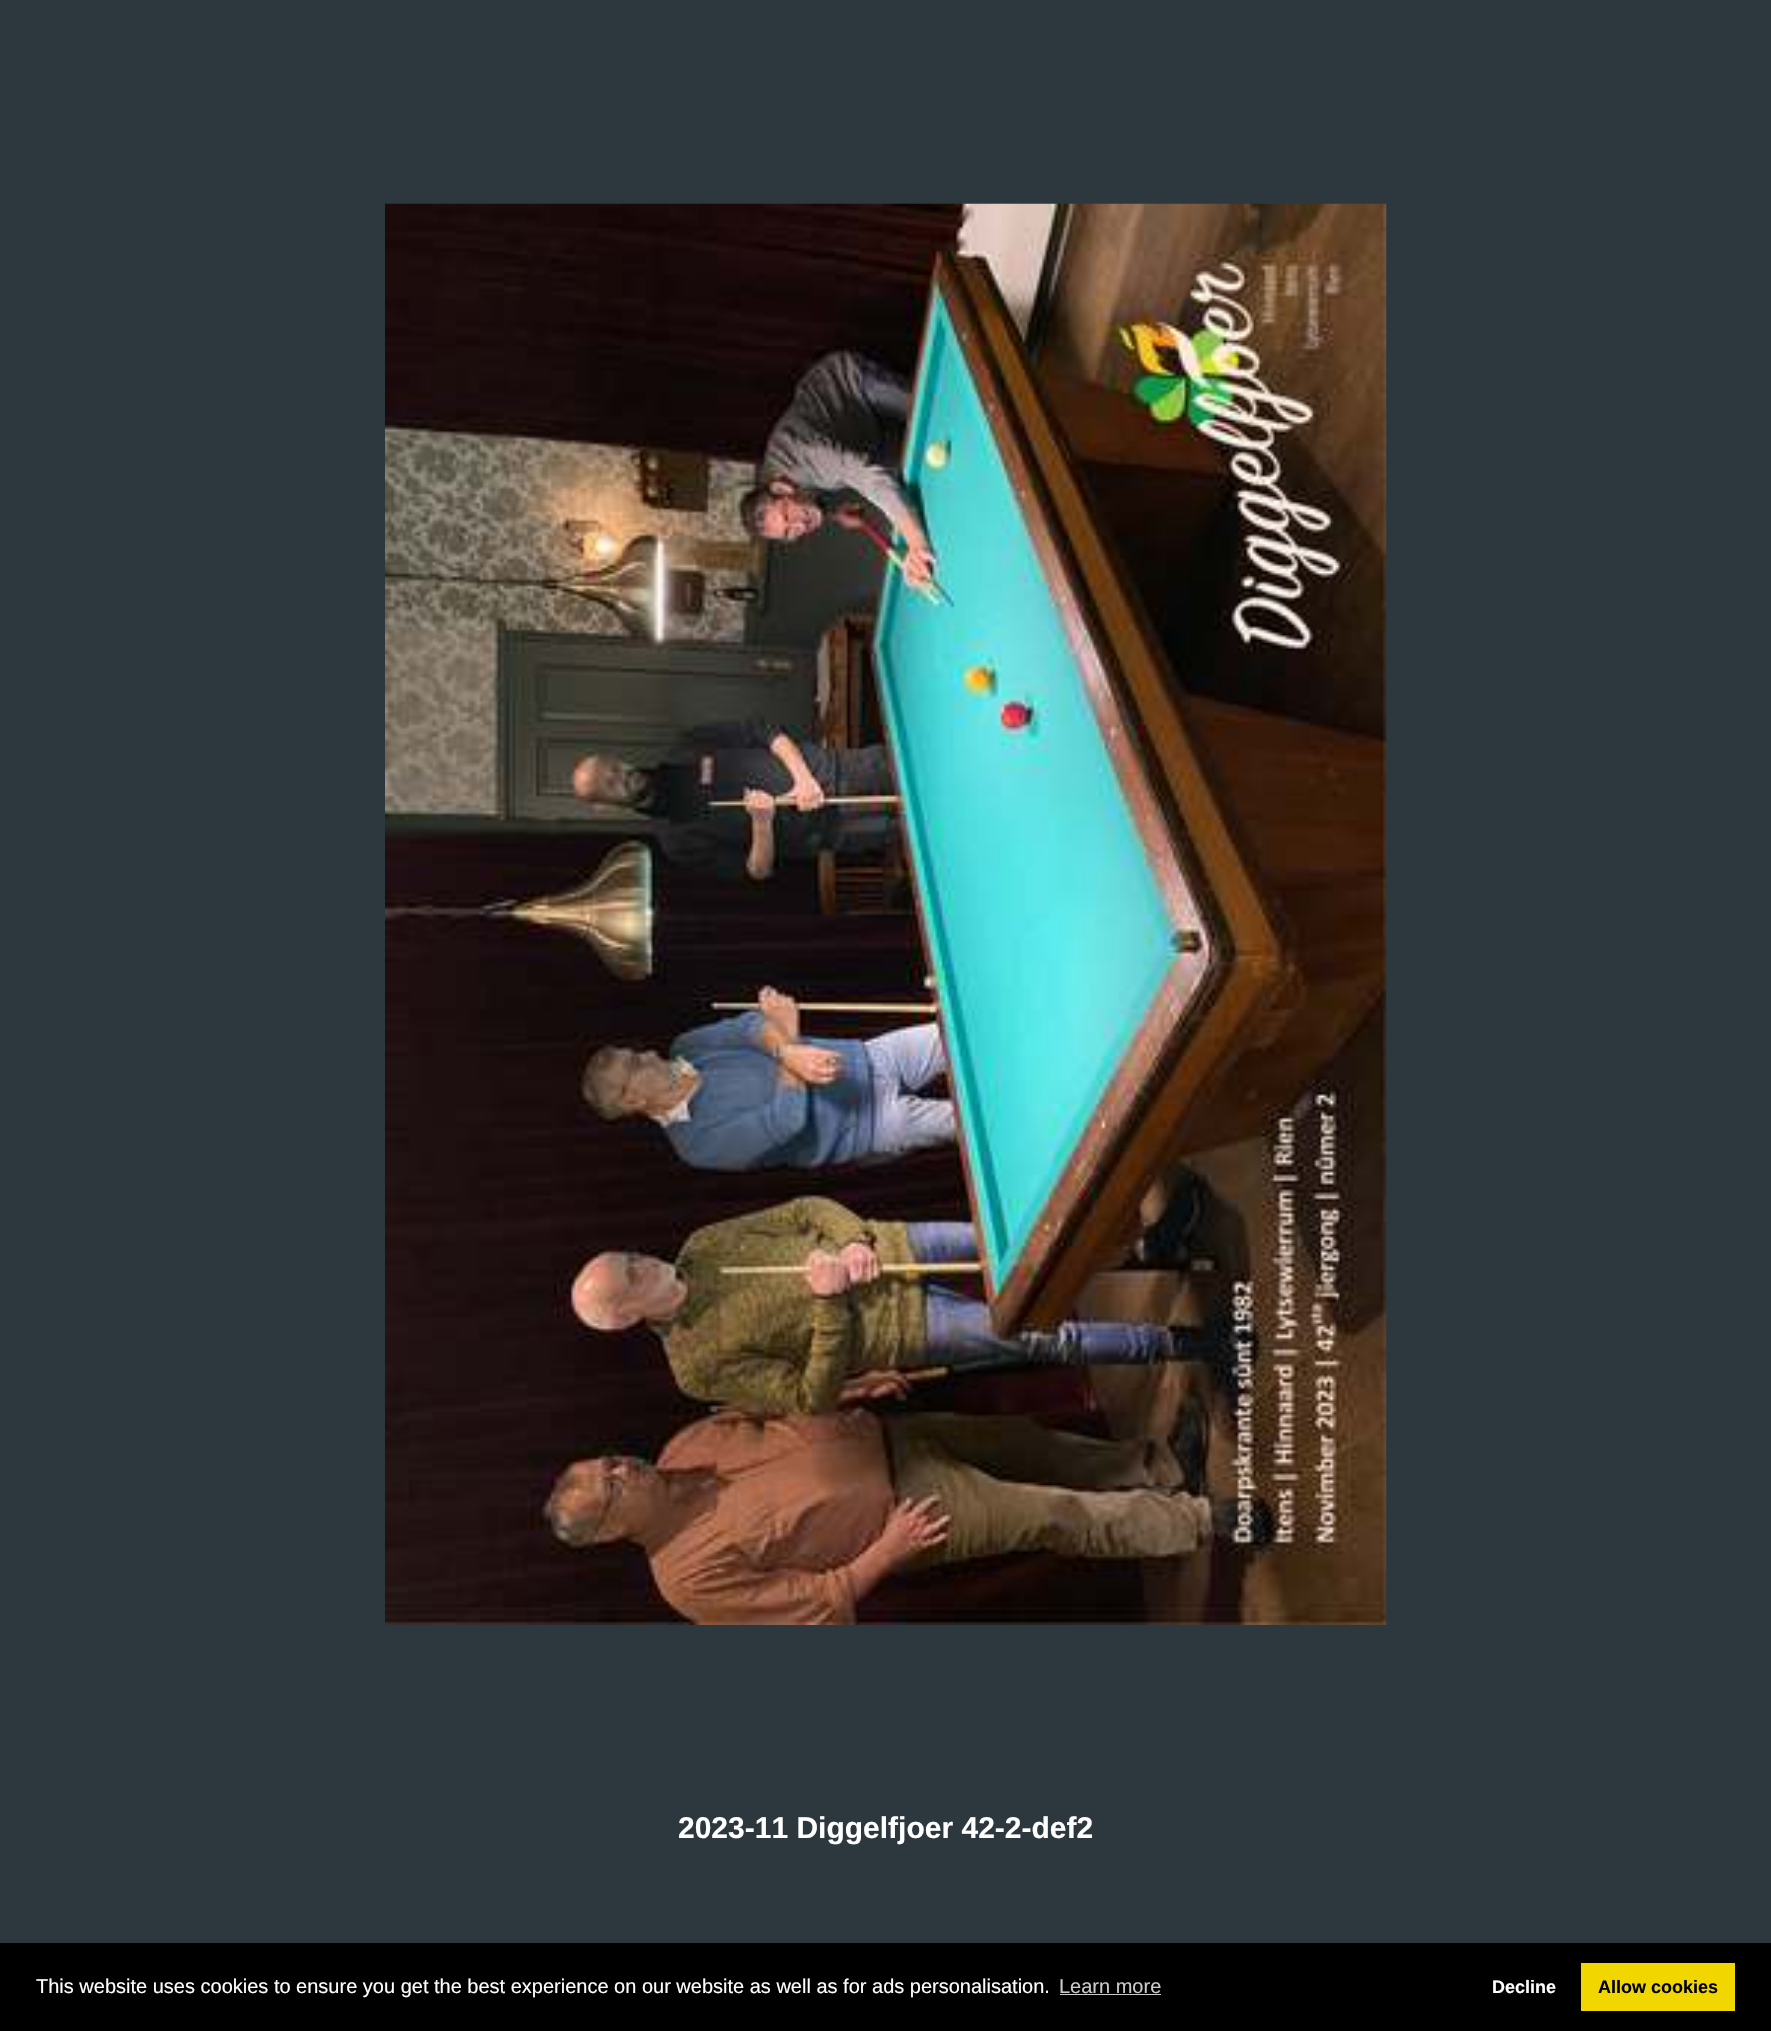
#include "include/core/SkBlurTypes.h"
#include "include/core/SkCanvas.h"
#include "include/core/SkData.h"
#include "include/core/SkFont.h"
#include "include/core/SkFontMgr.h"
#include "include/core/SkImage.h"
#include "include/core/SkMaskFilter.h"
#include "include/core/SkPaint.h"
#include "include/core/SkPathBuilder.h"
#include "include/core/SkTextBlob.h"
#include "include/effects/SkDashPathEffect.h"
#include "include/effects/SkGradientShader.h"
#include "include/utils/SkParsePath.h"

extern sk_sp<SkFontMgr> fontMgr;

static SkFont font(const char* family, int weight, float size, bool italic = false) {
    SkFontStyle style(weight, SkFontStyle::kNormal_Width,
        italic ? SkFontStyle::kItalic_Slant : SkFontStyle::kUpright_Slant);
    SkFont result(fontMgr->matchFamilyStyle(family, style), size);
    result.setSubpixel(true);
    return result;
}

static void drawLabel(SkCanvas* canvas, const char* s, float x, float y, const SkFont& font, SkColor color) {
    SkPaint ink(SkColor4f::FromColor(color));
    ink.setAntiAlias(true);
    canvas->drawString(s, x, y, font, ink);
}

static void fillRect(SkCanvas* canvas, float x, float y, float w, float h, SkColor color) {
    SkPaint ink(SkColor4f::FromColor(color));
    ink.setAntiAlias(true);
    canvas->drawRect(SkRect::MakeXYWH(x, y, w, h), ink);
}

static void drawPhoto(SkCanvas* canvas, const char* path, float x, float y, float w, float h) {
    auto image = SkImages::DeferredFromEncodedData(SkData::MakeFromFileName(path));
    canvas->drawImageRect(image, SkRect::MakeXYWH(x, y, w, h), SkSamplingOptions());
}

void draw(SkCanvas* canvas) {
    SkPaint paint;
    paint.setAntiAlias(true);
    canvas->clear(0xFF2D373E);
    drawPhoto(canvas, "assets/img1.png", 385, 203, 1002, 1422);
    SkFont font1 = font("Liberation Sans", 700, 30);
    drawLabel(canvas, "2023-11 Diggelfjoer 42-2-def2", 678, 1838, font1, 0xFFFFFFFF);
    fillRect(canvas, 0, 1943, 1771, 88, 0xFF000000);
    SkFont font2 = font("Liberation Sans", 400, 20);
    drawLabel(canvas, "This website uses cookies to ensure you get the best experience on our website as well as for ads personalisation.", 36, 1993, font2, 0xFFFFFFFF);
    drawLabel(canvas, "Learn more", 1059, 1993, font2, 0xFFCCCCCC);
    fillRect(canvas, 1060, 1994, 101, 1, 0xFFCCCCCC);
    SkFont font3 = font("Liberation Sans", 700, 18);
    drawLabel(canvas, "Decline", 1492, 1993, font3, 0xFFFFFFFF);
    fillRect(canvas, 1581, 1963, 154, 48, 0xFFF1D600);
    drawLabel(canvas, "Allow cookies", 1598, 1993, font3, 0xFF000000);
}
